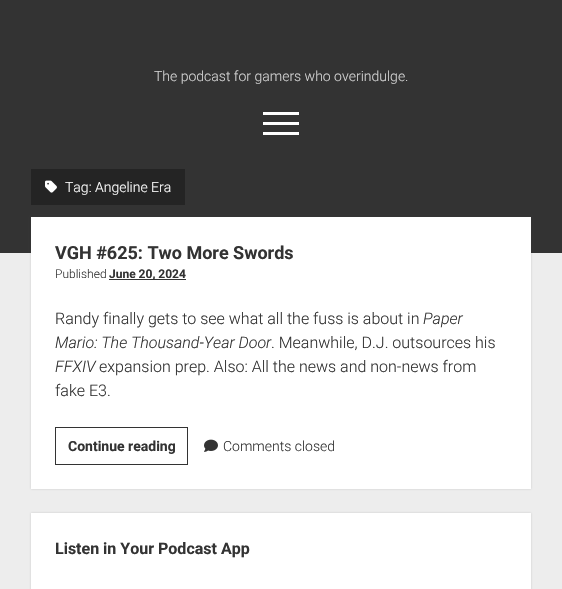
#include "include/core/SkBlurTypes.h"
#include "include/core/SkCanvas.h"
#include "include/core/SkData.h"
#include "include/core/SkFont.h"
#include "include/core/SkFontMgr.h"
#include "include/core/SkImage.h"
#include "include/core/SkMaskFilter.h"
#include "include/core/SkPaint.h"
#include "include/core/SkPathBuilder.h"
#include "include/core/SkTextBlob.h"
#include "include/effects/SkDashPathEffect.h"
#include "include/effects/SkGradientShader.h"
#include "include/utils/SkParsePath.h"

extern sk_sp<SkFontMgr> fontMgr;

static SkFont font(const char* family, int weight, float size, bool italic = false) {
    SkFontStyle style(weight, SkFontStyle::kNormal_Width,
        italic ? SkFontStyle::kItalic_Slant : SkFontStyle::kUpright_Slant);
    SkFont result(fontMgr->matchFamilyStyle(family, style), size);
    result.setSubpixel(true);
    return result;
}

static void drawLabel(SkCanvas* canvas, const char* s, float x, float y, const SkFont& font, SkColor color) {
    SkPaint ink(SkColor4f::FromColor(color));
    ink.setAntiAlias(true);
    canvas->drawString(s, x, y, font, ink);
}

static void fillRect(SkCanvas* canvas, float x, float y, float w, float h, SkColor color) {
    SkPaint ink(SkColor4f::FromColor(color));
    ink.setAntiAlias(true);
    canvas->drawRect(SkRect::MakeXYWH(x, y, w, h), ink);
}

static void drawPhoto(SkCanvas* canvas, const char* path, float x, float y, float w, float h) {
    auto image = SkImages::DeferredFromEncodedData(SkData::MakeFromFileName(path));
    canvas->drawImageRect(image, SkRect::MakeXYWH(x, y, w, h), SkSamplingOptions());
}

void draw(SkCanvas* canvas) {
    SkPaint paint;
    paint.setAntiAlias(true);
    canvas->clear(0xFFEDEDED);
    fillRect(canvas, 0, 0, 562, 253, 0xFF333333);
    SkFont font1 = font("Roboto", 300, 14);
    drawLabel(canvas, "The podcast for gamers who overindulge.", 154, 81, font1, 0xFFD4D4D4);
    fillRect(canvas, 263, 112, 36, 3, 0xFFFFFFFF);
    fillRect(canvas, 263, 122, 36, 3, 0xFFFFFFFF);
    fillRect(canvas, 263, 132, 36, 3, 0xFFFFFFFF);
    fillRect(canvas, 31, 169, 154, 36, 0xFF242424);
    drawPhoto(canvas, "assets/img1.png", 45, 180, 12, 13);
    drawLabel(canvas, "Tag: Angeline Era", 65, 192, font1, 0xFFFFFFFF);
    paint.setColor(0x333A3A3A);
    paint.setMaskFilter(SkMaskFilter::MakeBlur(kNormal_SkBlurStyle, 1));
    canvas->drawRect(SkRect::MakeXYWH(31, 217, 500, 272), paint);
    paint.setMaskFilter(nullptr);
    fillRect(canvas, 31, 217, 500, 272, 0xFFFFFFFF);
    SkFont font2 = font("Roboto", 700, 18);
    drawLabel(canvas, "VGH #625: Two More Swords", 55, 259, font2, 0xFF333333);
    SkFont font3 = font("Roboto", 300, 12);
    drawLabel(canvas, "Published", 55, 278, font3, 0xFF333333);
    fillRect(canvas, 109, 279, 77, 1, 0xFF333333);
    SkFont font4 = font("Roboto", 700, 12);
    drawLabel(canvas, "June 20, 2024", 109, 278, font4, 0xFF333333);
    SkFont font5 = font("Roboto", 300, 16);
    drawLabel(canvas, "Randy finally gets to see what all the fuss is about in", 55, 324, font5, 0xFF333333);
    SkFont font6 = font("Roboto", 300, 16, true);
    drawLabel(canvas, "Paper", 423, 324, font6, 0xFF333333);
    drawLabel(canvas, "Mario: The Thousand-Year Door", 55, 348, font6, 0xFF333333);
    drawLabel(canvas, ". Meanwhile, D.J. outsources his", 271, 348, font5, 0xFF333333);
    drawLabel(canvas, "FFXIV", 55, 372, font6, 0xFF333333);
    drawLabel(canvas, "expansion prep. Also: All the news and non-news from", 99, 372, font5, 0xFF333333);
    drawLabel(canvas, "fake E3.", 55, 396, font5, 0xFF333333);
    paint.setStroke(true);
    paint.setStrokeWidth(1);
    paint.setColor(0xFF333333);
    canvas->drawRect(SkRect::MakeXYWH(55.5f, 427.5f, 132, 37), paint);
    SkFont font7 = font("Roboto", 700, 14);
    drawLabel(canvas, "Continue reading", 68, 451, font7, 0xFF333333);
    drawPhoto(canvas, "assets/img2.png", 204, 439, 14, 13);
    drawLabel(canvas, "Comments closed", 223, 451, font1, 0xFF333333);
    paint.setStroke(false);
    paint.setColor(0x333A3A3A);
    paint.setMaskFilter(SkMaskFilter::MakeBlur(kNormal_SkBlurStyle, 1));
    canvas->drawRect(SkRect::MakeXYWH(31, 513, 500, 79), paint);
    paint.setMaskFilter(nullptr);
    fillRect(canvas, 31, 513, 500, 76, 0xFFFFFFFF);
    SkFont font8 = font("Roboto", 700, 16);
    drawLabel(canvas, "Listen in Your Podcast App", 55, 554, font8, 0xFF333333);
}
